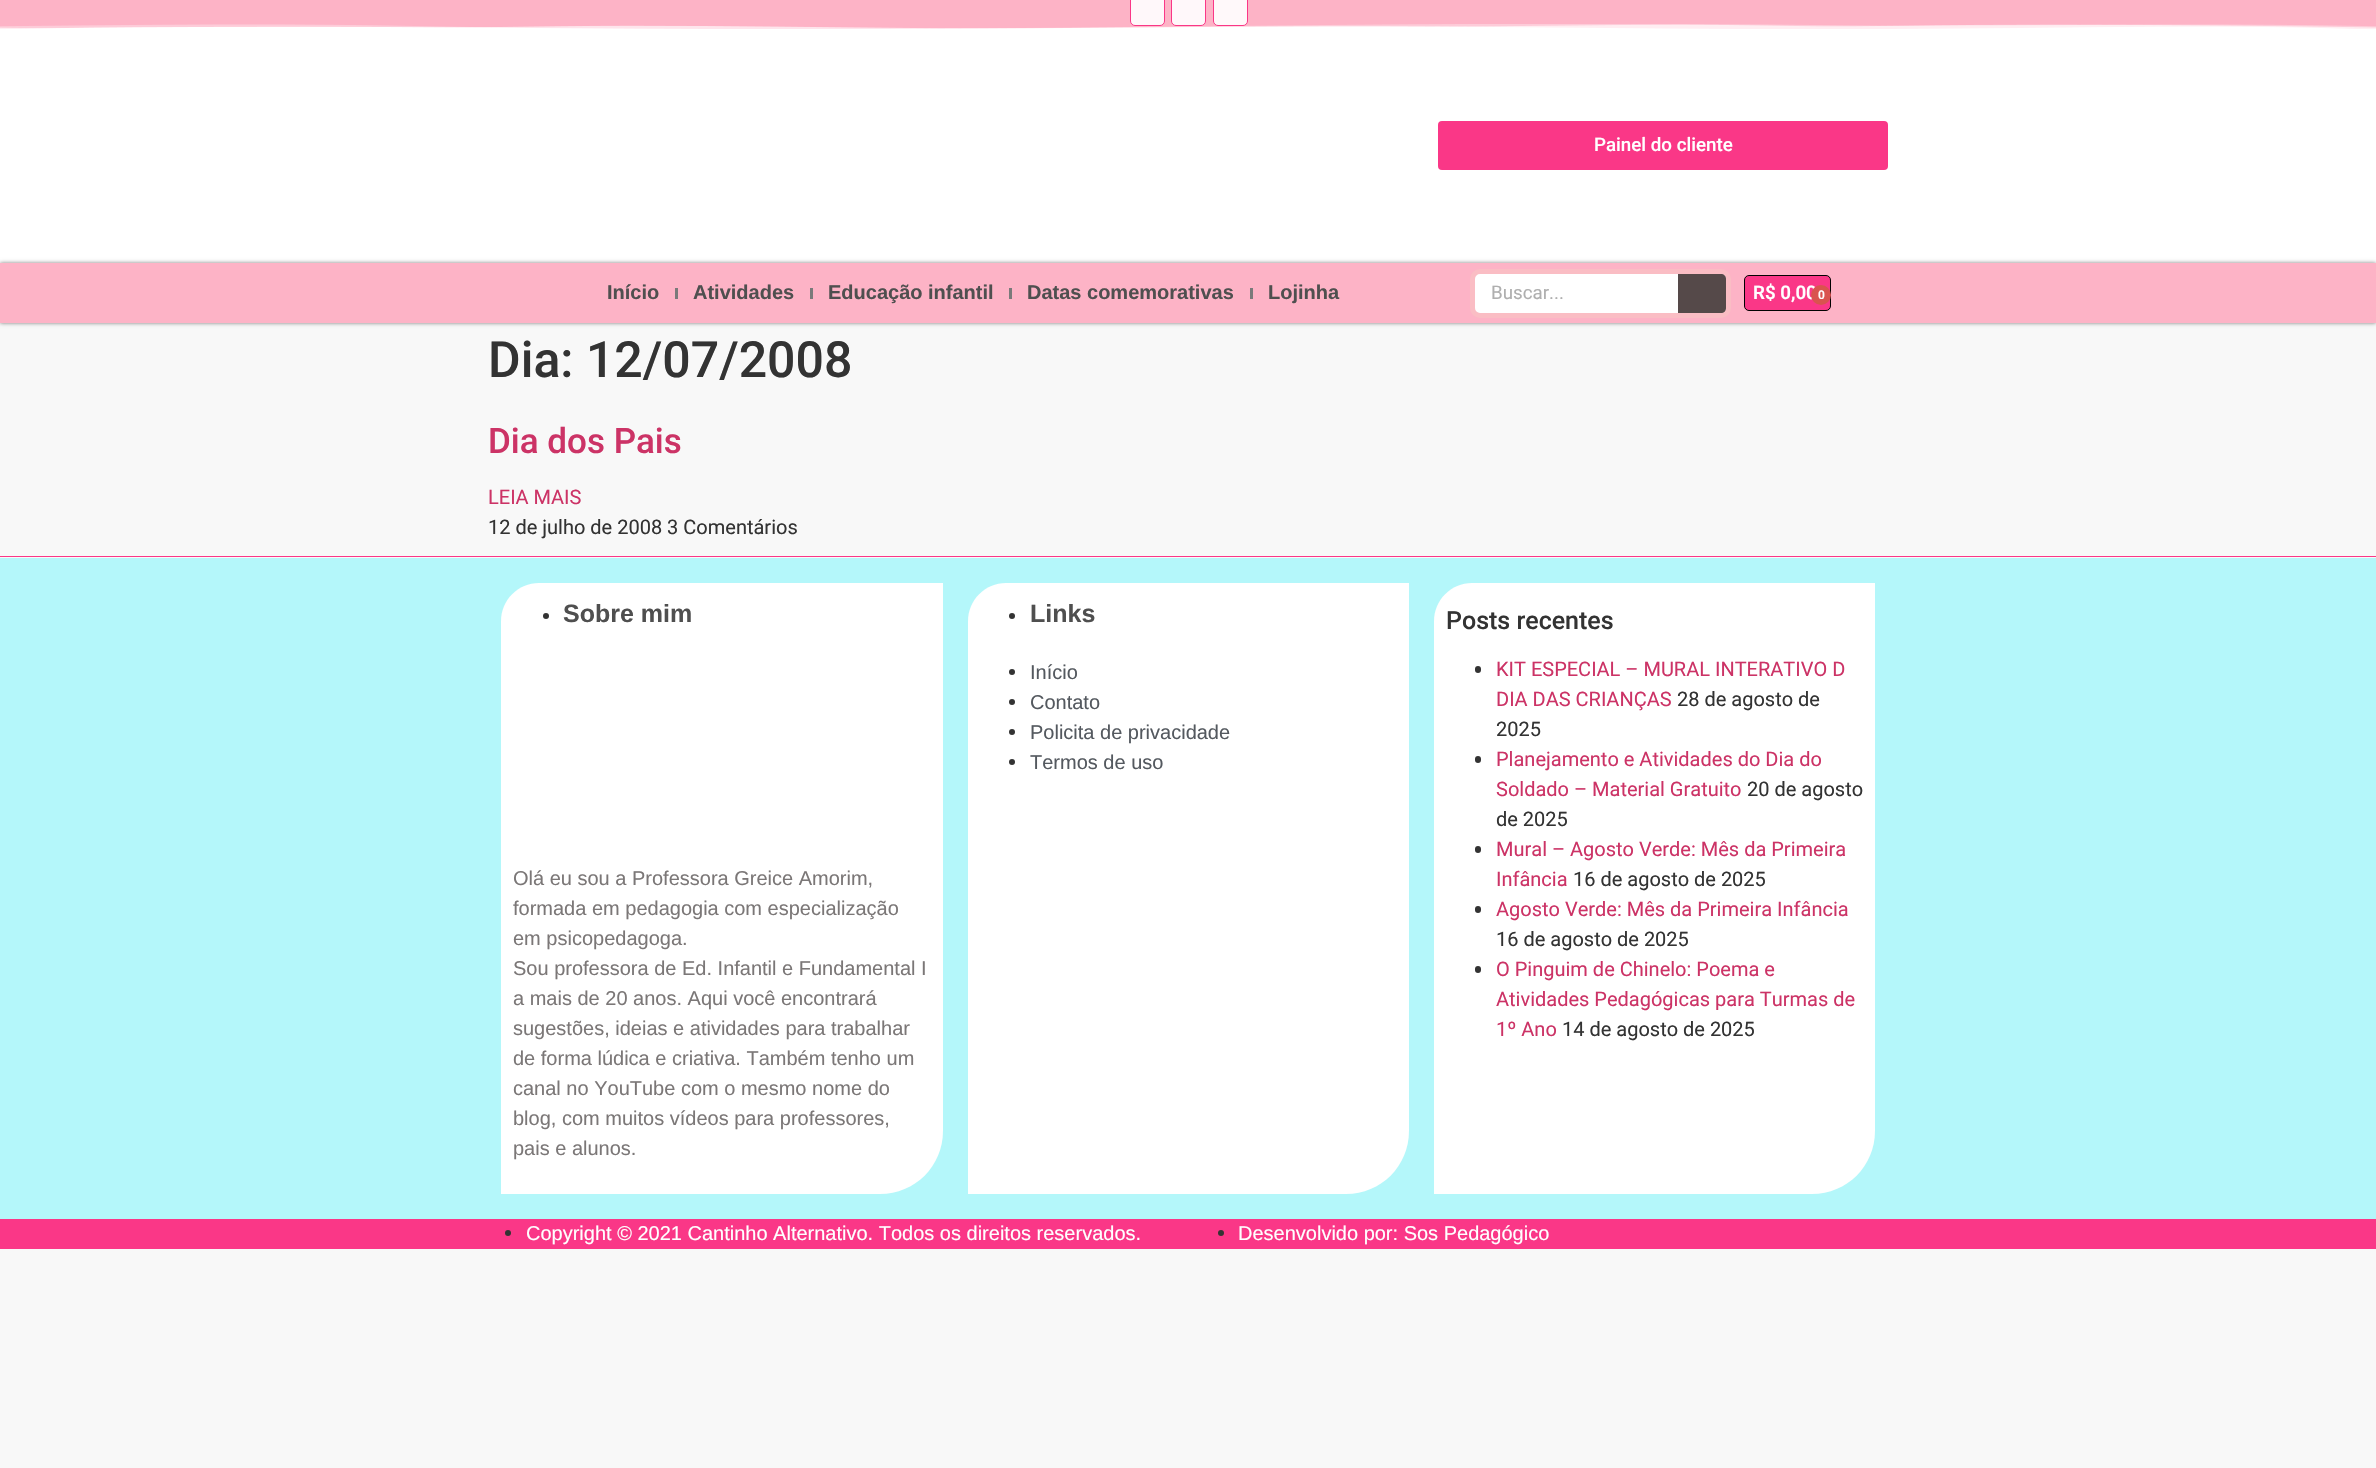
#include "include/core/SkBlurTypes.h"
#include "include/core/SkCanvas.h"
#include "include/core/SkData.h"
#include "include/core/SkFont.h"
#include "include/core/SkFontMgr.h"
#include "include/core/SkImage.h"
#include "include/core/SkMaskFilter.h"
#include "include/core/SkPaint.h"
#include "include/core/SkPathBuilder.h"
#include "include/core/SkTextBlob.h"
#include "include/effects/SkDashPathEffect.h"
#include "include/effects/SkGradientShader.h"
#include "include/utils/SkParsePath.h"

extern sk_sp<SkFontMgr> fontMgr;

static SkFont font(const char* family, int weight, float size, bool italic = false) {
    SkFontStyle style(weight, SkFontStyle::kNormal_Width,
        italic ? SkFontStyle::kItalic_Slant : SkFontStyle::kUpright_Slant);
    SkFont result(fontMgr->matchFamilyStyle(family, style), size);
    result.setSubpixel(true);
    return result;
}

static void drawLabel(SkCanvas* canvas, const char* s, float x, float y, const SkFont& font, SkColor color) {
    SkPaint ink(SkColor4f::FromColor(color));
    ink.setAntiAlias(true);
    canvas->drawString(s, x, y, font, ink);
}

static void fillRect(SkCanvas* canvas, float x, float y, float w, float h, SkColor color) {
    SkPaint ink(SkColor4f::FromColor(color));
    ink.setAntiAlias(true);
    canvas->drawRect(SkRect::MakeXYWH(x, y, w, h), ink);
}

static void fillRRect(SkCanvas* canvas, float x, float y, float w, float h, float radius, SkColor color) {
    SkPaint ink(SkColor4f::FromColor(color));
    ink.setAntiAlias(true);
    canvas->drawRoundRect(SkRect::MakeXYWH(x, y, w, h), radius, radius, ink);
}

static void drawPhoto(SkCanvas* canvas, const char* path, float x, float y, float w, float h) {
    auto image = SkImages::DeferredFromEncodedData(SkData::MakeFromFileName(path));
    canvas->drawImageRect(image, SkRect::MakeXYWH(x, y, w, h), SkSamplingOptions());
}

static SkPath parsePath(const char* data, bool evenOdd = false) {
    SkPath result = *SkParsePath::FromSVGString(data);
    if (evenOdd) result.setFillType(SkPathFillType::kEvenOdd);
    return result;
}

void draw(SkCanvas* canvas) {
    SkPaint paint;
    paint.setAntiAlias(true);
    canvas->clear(0xFFF8F8F8);
    fillRect(canvas, 0, 0, 2376, 29, 0xFFFDB3C6);
    drawPhoto(canvas, "assets/img1.png", 0, 24, 2376, 6);
    paint.setColor(0xFFFFF8FA);
    canvas->drawRoundRect(SkRect::MakeXYWH(1130.5f, -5.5f, 34, 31), 4.5f, 4.5f, paint);
    paint.setStroke(true);
    paint.setStrokeWidth(1);
    paint.setColor(0xFFFA3787);
    canvas->drawRoundRect(SkRect::MakeXYWH(1130.5f, -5.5f, 34, 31), 4.5f, 4.5f, paint);
    paint.setStroke(false);
    paint.setColor(0xFFFFF8FA);
    canvas->drawRoundRect(SkRect::MakeXYWH(1171.5f, -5.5f, 34, 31), 4.5f, 4.5f, paint);
    paint.setStroke(true);
    paint.setColor(0xFFFA3787);
    canvas->drawRoundRect(SkRect::MakeXYWH(1171.5f, -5.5f, 34, 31), 4.5f, 4.5f, paint);
    paint.setStroke(false);
    paint.setColor(0xE8FFFFFF);
    canvas->drawRoundRect(SkRect::MakeXYWH(1213.5f, -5.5f, 34, 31), 4.5f, 4.5f, paint);
    paint.setStroke(true);
    paint.setColor(0xFFFA3787);
    canvas->drawRoundRect(SkRect::MakeXYWH(1213.5f, -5.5f, 34, 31), 4.5f, 4.5f, paint);
    fillRect(canvas, 0, 30, 2376, 233, 0xE0FFFFFF);
    fillRRect(canvas, 1438, 121, 450, 49, 4, 0xFFFA3787);
    SkFont font1 = font("Roboto", 500, 18.75f);
    drawLabel(canvas, "Painel do cliente", 1594, 151, font1, 0xFFFFFFFF);
    paint.setStroke(false);
    paint.setColor(0x80000000);
    paint.setMaskFilter(SkMaskFilter::MakeBlur(kNormal_SkBlurStyle, 2));
    canvas->drawRect(SkRect::MakeXYWH(0, 263, 2376, 60), paint);
    paint.setMaskFilter(nullptr);
    fillRect(canvas, 0, 263, 2376, 60, 0xFFFDB3C6);
    SkFont font2 = font("Liberation Sans", 700, 20);
    drawLabel(canvas, "Início", 607, 299, font2, 0xFF4F4F4F);
    fillRect(canvas, 675, 288, 3, 11, 0xFF7A7A7A);
    drawLabel(canvas, "Atividades", 693, 299, font2, 0xFF4F4F4F);
    fillRect(canvas, 810, 288, 3, 11, 0xFF7A7A7A);
    drawLabel(canvas, "Educação infantil", 828, 299, font2, 0xFF4F4F4F);
    fillRect(canvas, 1009, 288, 3, 11, 0xFF7A7A7A);
    drawLabel(canvas, "Datas comemorativas", 1027, 299, font2, 0xFF4F4F4F);
    fillRect(canvas, 1250, 288, 3, 11, 0xFF7A7A7A);
    drawLabel(canvas, "Lojinha", 1268, 299, font2, 0xFF4F4F4F);
    paint.setColor(0xFFFFFFFF);
    canvas->drawRoundRect(SkRect::MakeXYWH(1472.5f, 271.5f, 256, 44), 7.5f, 7.5f, paint);
    paint.setStroke(true);
    paint.setStrokeWidth(5);
    paint.setColor(0xFFFABDC4);
    canvas->drawRoundRect(SkRect::MakeXYWH(1472.5f, 271.5f, 256, 44), 7.5f, 7.5f, paint);
    SkFont font3 = font("Roboto", 400, 18.75f);
    drawLabel(canvas, "Buscar...", 1491, 299, font3, 0xFFAFAFAF);
    paint.setStroke(false);
    paint.setColor(0xE8443737);
    canvas->drawPath(parsePath("M1678 274H1721C1724 274 1726 276 1726 279V308C1726 311 1724 313 1721 313H1678Z"), paint);
    paint.setColor(0xFFFA3787);
    canvas->drawRoundRect(SkRect::MakeXYWH(1744.5f, 275.5f, 86, 35), 4.5f, 4.5f, paint);
    paint.setStroke(true);
    paint.setStrokeWidth(1);
    paint.setColor(0xFF020101);
    canvas->drawRoundRect(SkRect::MakeXYWH(1744.5f, 275.5f, 86, 35), 4.5f, 4.5f, paint);
    SkFont font4 = font("Roboto", 600, 18.75f);
    drawLabel(canvas, "R$ 0,00", 1753, 299, font4, 0xFFFFFFFF);
    paint.setStroke(false);
    paint.setColor(0xFFD9534F);
    canvas->drawCircle(1821, 295, 10, paint);
    SkFont font5 = font("Roboto", 600, 12);
    drawLabel(canvas, "0", 1818, 299, font5, 0xFFFFFFFF);
    SkFont font6 = font("Roboto", 500, 50);
    drawLabel(canvas, "Dia: 12/07/2008", 488, 377, font6, 0xFF333333);
    SkFont font7 = font("Roboto", 500, 35);
    drawLabel(canvas, "Dia dos Pais", 488, 453, font7, 0xFFCC3366);
    SkFont font8 = font("Roboto", 400, 20);
    drawLabel(canvas, "LEIA MAIS", 488, 504, font8, 0xFFCC3366);
    drawLabel(canvas, "12 de julho de 2008 3 Comentários", 488, 534, font8, 0xFF333333);
    fillRect(canvas, 0, 556, 2376, 1, 0xFFFA3787);
    fillRect(canvas, 0, 558, 2376, 661, 0xFFB4F7FA);
    paint.setColor(0xFFFFFFFF);
    canvas->drawPath(parsePath("M539 583H943V1131C943 1166 915 1194 880 1194H501V621C501 600 518 583 539 583Z"), paint);
    paint.setColor(0xFF333333);
    canvas->drawCircle(546, 616, 3, paint);
    SkFont font9 = font("Liberation Sans", 700, 25);
    drawLabel(canvas, "Sobre mim", 563, 622, font9, 0xFF4F4F4F);
    SkFont font10 = font("Liberation Sans", 400, 20);
    drawLabel(canvas, "Olá eu sou a Professora Greice Amorim,", 513, 885, font10, 0xFF7B7777);
    drawLabel(canvas, "formada em pedagogia com especialização", 513, 915, font10, 0xFF7B7777);
    drawLabel(canvas, "em psicopedagoga.", 513, 945, font10, 0xFF7B7777);
    drawLabel(canvas, "Sou professora de Ed. Infantil e Fundamental I", 513, 975, font10, 0xFF7B7777);
    drawLabel(canvas, "a mais de 20 anos. Aqui você encontrará", 513, 1005, font10, 0xFF7B7777);
    drawLabel(canvas, "sugestões, ideias e atividades para trabalhar", 513, 1035, font10, 0xFF7B7777);
    drawLabel(canvas, "de forma lúdica e criativa. Também tenho um", 513, 1065, font10, 0xFF7B7777);
    drawLabel(canvas, "canal no YouTube com o mesmo nome do", 513, 1095, font10, 0xFF7B7777);
    drawLabel(canvas, "blog, com muitos vídeos para professores,", 513, 1125, font10, 0xFF7B7777);
    drawLabel(canvas, "pais e alunos.", 513, 1155, font10, 0xFF7B7777);
    paint.setColor(0xFFFFFFFF);
    canvas->drawPath(parsePath("M1006 583H1409V1131C1409 1166 1381 1194 1346 1194H968V621C968 600 985 583 1006 583Z"), paint);
    paint.setColor(0xFF333333);
    canvas->drawCircle(1012, 616, 3, paint);
    drawLabel(canvas, "Links", 1030, 622, font9, 0xFF4F4F4F);
    canvas->drawCircle(1012, 672, 3, paint);
    drawLabel(canvas, "Início", 1030, 679, font10, 0xFF54595F);
    canvas->drawCircle(1012, 702, 3, paint);
    drawLabel(canvas, "Contato", 1030, 709, font10, 0xFF54595F);
    canvas->drawCircle(1012, 732, 3, paint);
    drawLabel(canvas, "Policita de privacidade", 1030, 739, font10, 0xFF54595F);
    canvas->drawCircle(1012, 762, 3, paint);
    drawLabel(canvas, "Termos de uso", 1030, 769, font10, 0xFF54595F);
    paint.setColor(0xFFFFFFFF);
    canvas->drawPath(parsePath("M1472 583H1875V1131C1875 1166 1847 1194 1812 1194H1434V621C1434 600 1451 583 1472 583Z"), paint);
    SkFont font11 = font("Roboto", 500, 25);
    drawLabel(canvas, "Posts recentes", 1446, 629, font11, 0xFF333333);
    fillRRect(canvas, 1475, 666, 6, 7, 3, 0xFF333333);
    drawLabel(canvas, "KIT ESPECIAL – MURAL INTERATIVO D", 1496, 676, font8, 0xFFCC3366);
    drawLabel(canvas, "DIA DAS CRIANÇAS", 1496, 706, font8, 0xFFCC3366);
    drawLabel(canvas, "28 de agosto de", 1677, 706, font8, 0xFF333333);
    drawLabel(canvas, "2025", 1496, 736, font8, 0xFF333333);
    fillRRect(canvas, 1475, 756, 6, 7, 3, 0xFF333333);
    drawLabel(canvas, "Planejamento e Atividades do Dia do", 1496, 766, font8, 0xFFCC3366);
    drawLabel(canvas, "Soldado – Material Gratuito", 1496, 796, font8, 0xFFCC3366);
    drawLabel(canvas, "20 de agosto", 1747, 796, font8, 0xFF333333);
    drawLabel(canvas, "de 2025", 1496, 826, font8, 0xFF333333);
    fillRRect(canvas, 1475, 846, 6, 7, 3, 0xFF333333);
    drawLabel(canvas, "Mural – Agosto Verde: Mês da Primeira", 1496, 856, font8, 0xFFCC3366);
    drawLabel(canvas, "Infância", 1496, 886, font8, 0xFFCC3366);
    drawLabel(canvas, "16 de agosto de 2025", 1573, 886, font8, 0xFF333333);
    fillRRect(canvas, 1475, 906, 6, 7, 3, 0xFF333333);
    drawLabel(canvas, "Agosto Verde: Mês da Primeira Infância", 1496, 916, font8, 0xFFCC3366);
    drawLabel(canvas, "16 de agosto de 2025", 1496, 946, font8, 0xFF333333);
    fillRRect(canvas, 1475, 966, 6, 7, 3, 0xFF333333);
    drawLabel(canvas, "O Pinguim de Chinelo: Poema e", 1496, 976, font8, 0xFFCC3366);
    drawLabel(canvas, "Atividades Pedagógicas para Turmas de", 1496, 1006, font8, 0xFFCC3366);
    drawLabel(canvas, "1º Ano", 1496, 1036, font8, 0xFFCC3366);
    drawLabel(canvas, "14 de agosto de 2025", 1562, 1036, font8, 0xFF333333);
    fillRect(canvas, 0, 1219, 2376, 30, 0xFFFA3787);
    paint.setColor(0xFF333333);
    canvas->drawCircle(508, 1233, 3, paint);
    drawLabel(canvas, "Copyright © 2021 Cantinho Alternativo. Todos os direitos reservados.", 526, 1240, font10, 0xFFFFFFFF);
    canvas->drawCircle(1221, 1233, 3, paint);
    drawLabel(canvas, "Desenvolvido por: Sos Pedagógico", 1238, 1240, font10, 0xFFFFFFFF);
}
